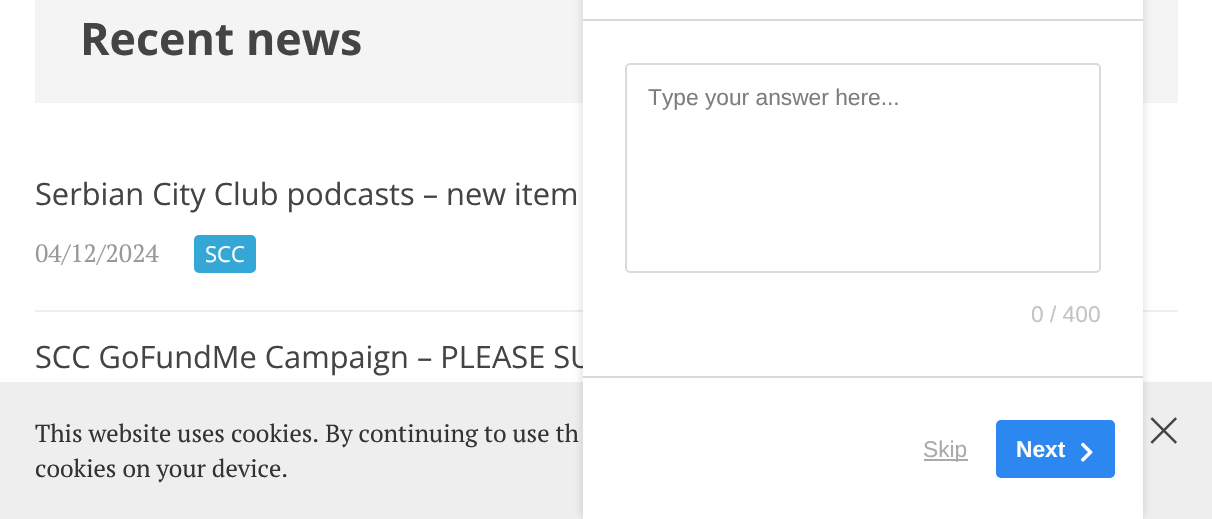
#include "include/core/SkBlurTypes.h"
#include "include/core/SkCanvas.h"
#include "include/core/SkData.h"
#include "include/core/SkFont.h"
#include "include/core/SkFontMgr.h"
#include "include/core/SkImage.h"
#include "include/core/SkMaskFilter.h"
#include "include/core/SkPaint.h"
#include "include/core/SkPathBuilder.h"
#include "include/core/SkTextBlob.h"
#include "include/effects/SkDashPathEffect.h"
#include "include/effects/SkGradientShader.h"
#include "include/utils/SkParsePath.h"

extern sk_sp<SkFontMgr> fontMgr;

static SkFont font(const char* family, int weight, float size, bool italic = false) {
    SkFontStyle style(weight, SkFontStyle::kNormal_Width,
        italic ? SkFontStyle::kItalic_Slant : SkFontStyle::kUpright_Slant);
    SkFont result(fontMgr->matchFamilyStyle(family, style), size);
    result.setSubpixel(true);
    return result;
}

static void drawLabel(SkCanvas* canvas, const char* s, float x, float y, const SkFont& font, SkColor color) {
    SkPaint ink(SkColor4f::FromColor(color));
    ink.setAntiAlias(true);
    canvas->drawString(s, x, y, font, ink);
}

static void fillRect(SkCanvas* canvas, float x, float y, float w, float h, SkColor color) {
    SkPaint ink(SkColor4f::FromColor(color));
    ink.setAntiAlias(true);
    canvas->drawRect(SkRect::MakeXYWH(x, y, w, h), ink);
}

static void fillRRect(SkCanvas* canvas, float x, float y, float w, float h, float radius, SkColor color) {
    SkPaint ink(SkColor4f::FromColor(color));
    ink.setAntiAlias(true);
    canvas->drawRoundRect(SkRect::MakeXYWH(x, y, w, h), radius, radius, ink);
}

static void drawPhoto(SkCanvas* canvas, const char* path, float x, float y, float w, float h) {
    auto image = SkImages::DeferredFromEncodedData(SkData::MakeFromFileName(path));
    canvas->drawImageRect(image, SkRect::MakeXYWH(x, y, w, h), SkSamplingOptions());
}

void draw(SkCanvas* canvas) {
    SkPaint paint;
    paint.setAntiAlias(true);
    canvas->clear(0xFFFFFFFF);
    fillRect(canvas, 35, 0, 1143, 103, 0xFFF4F4F4);
    SkFont font1 = font("Open Sans", 700, 44.75f);
    drawLabel(canvas, "Recent news", 80, 55, font1, 0xFF444444);
    SkFont font2 = font("Open Sans", 400, 30.75f);
    drawLabel(canvas, "Serbian City Club podcasts – new item", 35, 205, font2, 0xFF444444);
    SkFont font3 = font("PT Serif", 400, 25);
    drawLabel(canvas, "04/12/2024", 35, 262, font3, 0xFF999999);
    fillRRect(canvas, 194, 235, 62, 38, 5, 0xFF35A7D6);
    SkFont font4 = font("Open Sans", 400, 22);
    drawLabel(canvas, "SCC", 205, 262, font4, 0xFFFFFFFF);
    fillRect(canvas, 35, 310, 1143, 2, 0xFFEEEEEE);
    drawLabel(canvas, "SCC GoFundMe Campaign – PLEASE SU", 35, 368, font2, 0xFF444444);
    paint.setColor(0xFF808080);
    paint.setMaskFilter(SkMaskFilter::MakeBlur(kNormal_SkBlurStyle, 4.5f));
    canvas->drawRoundRect(SkRect::MakeXYWH(1090, 390, 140, 105), 4, 4, paint);
    paint.setMaskFilter(nullptr);
    fillRect(canvas, 0, 382, 1212, 137, 0xFFEEEEEE);
    SkFont font5 = font("PT Serif", 400, 24.5f);
    drawLabel(canvas, "This website uses cookies. By continuing to use th", 35, 442, font5, 0xFF333333);
    drawLabel(canvas, "cookies on your device.", 35, 477, font5, 0xFF333333);
    drawPhoto(canvas, "assets/img1.png", 1150, 417, 27, 27);
    paint.setColor(0x12000000);
    paint.setMaskFilter(SkMaskFilter::MakeBlur(kNormal_SkBlurStyle, 2.5f));
    canvas->drawRoundRect(SkRect::MakeXYWH(579, -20, 567, 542), 12, 12, paint);
    paint.setMaskFilter(nullptr);
    fillRect(canvas, 583, 0, 560, 519, 0xFFFFFFFF);
    fillRect(canvas, 583, 19, 560, 2, 0xFFD9D9D9);
    fillRect(canvas, 583, 376, 560, 2, 0xFFD9D9D9);
    paint.setStroke(true);
    paint.setStrokeWidth(2);
    paint.setColor(0xFFDADADA);
    canvas->drawRoundRect(SkRect::MakeXYWH(626, 64, 474, 208), 4, 4, paint);
    SkFont font6 = font("Liberation Sans", 400, 22.75f);
    drawLabel(canvas, "Type your answer here...", 648, 105, font6, 0xFF7E7E7E);
    drawLabel(canvas, "0 / 400", 1031, 322, font6, 0xFFC4C4C4);
    fillRect(canvas, 924, 459, 44, 2, 0xFFAAAAAA);
    drawLabel(canvas, "Skip", 923, 457, font6, 0xFFAAAAAA);
    fillRRect(canvas, 996, 420, 119, 58, 5, 0xFF2D87F1);
    SkFont font7 = font("Liberation Sans", 700, 22.75f);
    drawLabel(canvas, "Next", 1016, 457, font7, 0xFFFFFFFF);
    drawPhoto(canvas, "assets/img2.png", 1081, 442, 12, 20);
}
